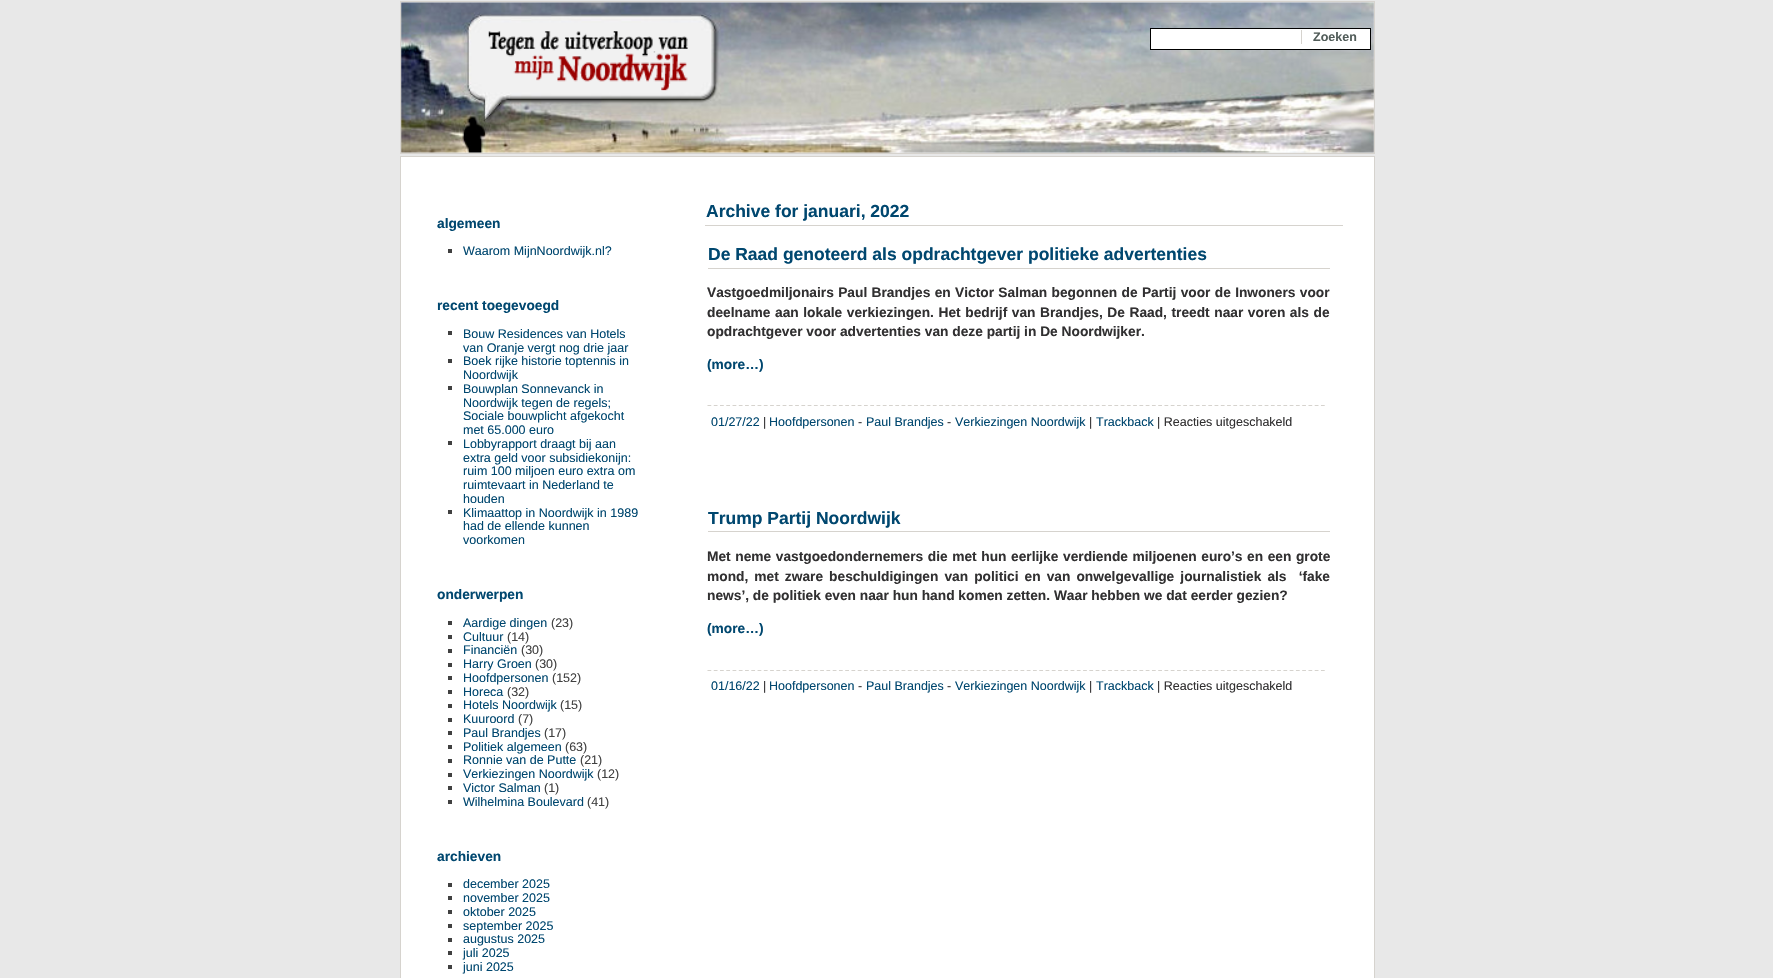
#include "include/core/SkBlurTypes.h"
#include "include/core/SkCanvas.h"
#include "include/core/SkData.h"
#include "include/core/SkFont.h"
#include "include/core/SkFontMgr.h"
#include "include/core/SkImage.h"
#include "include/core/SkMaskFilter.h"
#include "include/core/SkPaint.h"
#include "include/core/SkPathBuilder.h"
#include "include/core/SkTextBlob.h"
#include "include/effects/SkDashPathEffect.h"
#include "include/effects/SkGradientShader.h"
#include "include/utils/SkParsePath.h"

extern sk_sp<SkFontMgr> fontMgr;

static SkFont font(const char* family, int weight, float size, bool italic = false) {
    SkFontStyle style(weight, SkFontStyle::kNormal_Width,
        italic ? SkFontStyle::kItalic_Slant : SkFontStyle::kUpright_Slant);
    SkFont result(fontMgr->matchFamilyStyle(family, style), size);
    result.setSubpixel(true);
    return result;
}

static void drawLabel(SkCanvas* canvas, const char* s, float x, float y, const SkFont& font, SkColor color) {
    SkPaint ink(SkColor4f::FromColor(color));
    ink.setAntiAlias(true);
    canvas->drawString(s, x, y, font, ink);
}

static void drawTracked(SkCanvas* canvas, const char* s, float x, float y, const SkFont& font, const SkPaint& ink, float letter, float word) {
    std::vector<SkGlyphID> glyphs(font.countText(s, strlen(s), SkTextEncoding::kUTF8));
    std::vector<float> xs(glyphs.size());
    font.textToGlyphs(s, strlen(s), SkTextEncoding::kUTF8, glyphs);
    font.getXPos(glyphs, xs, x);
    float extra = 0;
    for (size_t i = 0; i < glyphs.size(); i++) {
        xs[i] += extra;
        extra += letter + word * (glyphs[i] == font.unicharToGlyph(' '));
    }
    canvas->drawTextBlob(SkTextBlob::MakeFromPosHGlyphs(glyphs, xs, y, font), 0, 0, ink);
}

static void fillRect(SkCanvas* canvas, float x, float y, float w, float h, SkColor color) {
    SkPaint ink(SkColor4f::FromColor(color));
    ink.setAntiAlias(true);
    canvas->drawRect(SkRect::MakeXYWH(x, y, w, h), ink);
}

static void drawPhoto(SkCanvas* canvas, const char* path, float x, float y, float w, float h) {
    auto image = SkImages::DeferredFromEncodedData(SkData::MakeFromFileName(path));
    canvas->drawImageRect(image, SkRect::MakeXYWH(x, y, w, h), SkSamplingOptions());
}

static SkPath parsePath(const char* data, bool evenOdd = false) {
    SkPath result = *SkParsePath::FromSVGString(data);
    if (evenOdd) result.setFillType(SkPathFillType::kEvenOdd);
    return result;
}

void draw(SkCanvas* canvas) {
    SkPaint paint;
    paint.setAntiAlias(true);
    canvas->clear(0xFFE8E8E8);
    drawPhoto(canvas, "assets/img1.png", 401, 2, 973, 151);
    paint.setStroke(true);
    paint.setStrokeWidth(1);
    paint.setColor(0xFFD6D3CE);
    canvas->drawRect(SkRect::MakeXYWH(400.5f, 1.5f, 974, 152), paint);
    paint.setStroke(false);
    paint.setColor(0xFFFFFFFF);
    canvas->drawRect(SkRect::MakeXYWH(1150.5f, 28.5f, 220, 21), paint);
    paint.setStroke(true);
    paint.setColor(0xFF000000);
    canvas->drawRect(SkRect::MakeXYWH(1150.5f, 28.5f, 220, 21), paint);
    fillRect(canvas, 1301, 30, 1, 14, 0xFFD6D3CE);
    SkFont font1 = font("Liberation Sans", 700, 12.5f);
    drawLabel(canvas, "Zoeken", 1313, 41, font1, 0xFF525D5A);
    paint.setStroke(false);
    paint.setColor(0xFFFFFFFF);
    canvas->drawRect(SkRect::MakeXYWH(400.5f, 156.5f, 974, 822), paint);
    paint.setStroke(true);
    paint.setColor(0xFFD6D3CE);
    canvas->drawRect(SkRect::MakeXYWH(400.5f, 156.5f, 974, 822), paint);
    SkFont font2 = font("Liberation Sans", 700, 13.75f);
    drawLabel(canvas, "algemeen", 437, 228, font2, 0xFF00476F);
    fillRect(canvas, 448, 249, 4, 4, 0xFF404040);
    SkFont font3 = font("Liberation Sans", 400, 12.5f);
    drawLabel(canvas, "Waarom MijnNoordwijk.nl?", 463, 255, font3, 0xFF00476F);
    drawLabel(canvas, "recent toegevoegd", 437, 310, font2, 0xFF00476F);
    fillRect(canvas, 448, 331, 4, 4, 0xFF404040);
    drawLabel(canvas, "Bouw Residences van Hotels", 463, 338, font3, 0xFF00476F);
    drawLabel(canvas, "van Oranje vergt nog drie jaar", 463, 352, font3, 0xFF00476F);
    fillRect(canvas, 448, 359, 4, 4, 0xFF404040);
    drawLabel(canvas, "Boek rijke historie toptennis in", 463, 365, font3, 0xFF00476F);
    drawLabel(canvas, "Noordwijk", 463, 379, font3, 0xFF00476F);
    fillRect(canvas, 448, 386, 4, 4, 0xFF404040);
    drawLabel(canvas, "Bouwplan Sonnevanck in", 463, 393, font3, 0xFF00476F);
    drawLabel(canvas, "Noordwijk tegen de regels;", 463, 407, font3, 0xFF00476F);
    drawLabel(canvas, "Sociale bouwplicht afgekocht", 463, 420, font3, 0xFF00476F);
    drawLabel(canvas, "met 65.000 euro", 463, 434, font3, 0xFF00476F);
    fillRect(canvas, 448, 441, 4, 4, 0xFF404040);
    drawLabel(canvas, "Lobbyrapport draagt bij aan", 463, 448, font3, 0xFF00476F);
    drawLabel(canvas, "extra geld voor subsidiekonijn:", 463, 462, font3, 0xFF00476F);
    drawLabel(canvas, "ruim 100 miljoen euro extra om", 463, 475, font3, 0xFF00476F);
    drawLabel(canvas, "ruimtevaart in Nederland te", 463, 489, font3, 0xFF00476F);
    drawLabel(canvas, "houden", 463, 503, font3, 0xFF00476F);
    fillRect(canvas, 448, 510, 4, 4, 0xFF404040);
    drawLabel(canvas, "Klimaattop in Noordwijk in 1989", 463, 517, font3, 0xFF00476F);
    drawLabel(canvas, "had de ellende kunnen", 463, 530, font3, 0xFF00476F);
    drawLabel(canvas, "voorkomen", 463, 544, font3, 0xFF00476F);
    drawLabel(canvas, "onderwerpen", 437, 599, font2, 0xFF00476F);
    fillRect(canvas, 448, 621, 4, 4, 0xFF404040);
    drawLabel(canvas, "Aardige dingen", 463, 627, font3, 0xFF00476F);
    drawLabel(canvas, "(23)", 551, 627, font3, 0xFF404040);
    fillRect(canvas, 448, 635, 4, 4, 0xFF404040);
    drawLabel(canvas, "Cultuur", 463, 641, font3, 0xFF00476F);
    drawLabel(canvas, "(14)", 507, 641, font3, 0xFF404040);
    fillRect(canvas, 448, 649, 4, 4, 0xFF404040);
    drawLabel(canvas, "Financiën", 463, 654, font3, 0xFF00476F);
    drawLabel(canvas, "(30)", 521, 654, font3, 0xFF404040);
    fillRect(canvas, 448, 663, 4, 4, 0xFF404040);
    drawLabel(canvas, "Harry Groen", 463, 668, font3, 0xFF00476F);
    drawLabel(canvas, "(30)", 535, 668, font3, 0xFF404040);
    fillRect(canvas, 448, 676, 4, 4, 0xFF404040);
    drawLabel(canvas, "Hoofdpersonen", 463, 682, font3, 0xFF00476F);
    drawLabel(canvas, "(152)", 552, 682, font3, 0xFF404040);
    fillRect(canvas, 448, 690, 4, 4, 0xFF404040);
    drawLabel(canvas, "Horeca", 463, 696, font3, 0xFF00476F);
    drawLabel(canvas, "(32)", 507, 696, font3, 0xFF404040);
    fillRect(canvas, 448, 704, 4, 4, 0xFF404040);
    drawLabel(canvas, "Hotels Noordwijk", 463, 709, font3, 0xFF00476F);
    drawLabel(canvas, "(15)", 560, 709, font3, 0xFF404040);
    fillRect(canvas, 448, 718, 4, 4, 0xFF404040);
    drawLabel(canvas, "Kuuroord", 463, 723, font3, 0xFF00476F);
    drawLabel(canvas, "(7)", 518, 723, font3, 0xFF404040);
    fillRect(canvas, 448, 731, 4, 4, 0xFF404040);
    drawLabel(canvas, "Paul Brandjes", 463, 737, font3, 0xFF00476F);
    drawLabel(canvas, "(17)", 544, 737, font3, 0xFF404040);
    fillRect(canvas, 448, 745, 4, 4, 0xFF404040);
    drawLabel(canvas, "Politiek algemeen", 463, 751, font3, 0xFF00476F);
    drawLabel(canvas, "(63)", 565, 751, font3, 0xFF404040);
    fillRect(canvas, 448, 759, 4, 4, 0xFF404040);
    drawLabel(canvas, "Ronnie van de Putte", 463, 764, font3, 0xFF00476F);
    drawLabel(canvas, "(21)", 580, 764, font3, 0xFF404040);
    fillRect(canvas, 448, 773, 4, 4, 0xFF404040);
    drawLabel(canvas, "Verkiezingen Noordwijk", 463, 778, font3, 0xFF00476F);
    drawLabel(canvas, "(12)", 597, 778, font3, 0xFF404040);
    fillRect(canvas, 448, 786, 4, 4, 0xFF404040);
    drawLabel(canvas, "Victor Salman", 463, 792, font3, 0xFF00476F);
    drawLabel(canvas, "(1)", 544, 792, font3, 0xFF404040);
    fillRect(canvas, 448, 800, 4, 4, 0xFF404040);
    drawLabel(canvas, "Wilhelmina Boulevard", 463, 806, font3, 0xFF00476F);
    drawLabel(canvas, "(41)", 587, 806, font3, 0xFF404040);
    drawLabel(canvas, "archieven", 437, 861, font2, 0xFF00476F);
    fillRect(canvas, 448, 883, 4, 4, 0xFF404040);
    drawLabel(canvas, "december 2025", 463, 888, font3, 0xFF00476F);
    fillRect(canvas, 448, 896, 4, 4, 0xFF404040);
    drawLabel(canvas, "november 2025", 463, 902, font3, 0xFF00476F);
    fillRect(canvas, 448, 910, 4, 4, 0xFF404040);
    drawLabel(canvas, "oktober 2025", 463, 916, font3, 0xFF00476F);
    fillRect(canvas, 448, 924, 4, 4, 0xFF404040);
    drawLabel(canvas, "september 2025", 463, 930, font3, 0xFF00476F);
    fillRect(canvas, 448, 938, 4, 4, 0xFF404040);
    drawLabel(canvas, "augustus 2025", 463, 943, font3, 0xFF00476F);
    fillRect(canvas, 448, 951, 4, 4, 0xFF404040);
    drawLabel(canvas, "juli 2025", 463, 957, font3, 0xFF00476F);
    fillRect(canvas, 448, 965, 4, 4, 0xFF404040);
    drawLabel(canvas, "juni 2025", 463, 971, font3, 0xFF00476F);
    fillRect(canvas, 705, 225, 638, 1, 0xFFD6D3CE);
    SkFont font4 = font("Liberation Sans", 700, 17.5f);
    drawLabel(canvas, "Archive for januari, 2022", 706, 217, font4, 0xFF00476F);
    fillRect(canvas, 708, 268, 622, 1, 0xFFD6D3CE);
    drawLabel(canvas, "De Raad genoteerd als opdrachtgever politieke advertenties", 708, 260, font4, 0xFF00476F);
    paint.setStroke(false);
    paint.setColor(0xFF313031);
    drawTracked(canvas, "Vastgoedmiljonairs Paul Brandjes en Victor Salman begonnen de Partij voor de Inwoners voor", 707, 297, font2, paint, 0, 0.5f);
    drawTracked(canvas, "deelname aan lokale verkiezingen. Het bedrijf van Brandjes, De Raad, treedt naar voren als de", 707, 317, font2, paint, 0, 0.75f);
    drawLabel(canvas, "opdrachtgever voor advertenties van deze partij in De Noordwijker.", 707, 336, font2, 0xFF313031);
    drawLabel(canvas, "(more…)", 707, 369, font2, 0xFF00476F);
    paint.setStroke(true);
    paint.setStrokeWidth(1.2f);
    paint.setColor(0xFFD6D3CE);
    paint.setPathEffect(SkDashPathEffect::Make({{3.75f, 2.51f}}, 0));
    canvas->drawPath(parsePath("M707.5 405.5H1325"), paint);
    paint.setPathEffect(nullptr);
    drawLabel(canvas, "01/27/22", 711, 426, font3, 0xFF00476F);
    drawLabel(canvas, "|", 763, 426, font3, 0xFF313031);
    drawLabel(canvas, "Hoofdpersonen", 769, 426, font3, 0xFF00476F);
    drawLabel(canvas, "-", 858, 426, font3, 0xFF313031);
    drawLabel(canvas, "Paul Brandjes", 866, 426, font3, 0xFF00476F);
    drawLabel(canvas, "-", 947, 426, font3, 0xFF313031);
    drawLabel(canvas, "Verkiezingen Noordwijk", 955, 426, font3, 0xFF00476F);
    drawLabel(canvas, "|", 1089, 426, font3, 0xFF313031);
    drawLabel(canvas, "Trackback", 1096, 426, font3, 0xFF00476F);
    drawLabel(canvas, "| Reacties uitgeschakeld", 1157, 426, font3, 0xFF313031);
    fillRect(canvas, 708, 531, 622, 1, 0xFFD6D3CE);
    drawLabel(canvas, "Trump Partij Noordwijk", 708, 524, font4, 0xFF00476F);
    paint.setStroke(false);
    paint.setColor(0xFF313031);
    drawTracked(canvas, "Met neme vastgoedondernemers die met hun eerlijke verdiende miljoenen euro’s en een grote", 707, 561, font2, paint, 0, 0.75f);
    drawTracked(canvas, "mond, met zware beschuldigingen van politici en van onwelgevallige journalistiek als  ‘fake", 707, 581, font2, paint, 0, 2.25f);
    drawLabel(canvas, "news’, de politiek even naar hun hand komen zetten. Waar hebben we dat eerder gezien?", 707, 600, font2, 0xFF313031);
    drawLabel(canvas, "(more…)", 707, 633, font2, 0xFF00476F);
    paint.setStroke(true);
    paint.setColor(0xFFD6D3CE);
    paint.setPathEffect(SkDashPathEffect::Make({{3.75f, 2.51f}}, 0));
    canvas->drawPath(parsePath("M707.5 670.5H1325"), paint);
    paint.setPathEffect(nullptr);
    drawLabel(canvas, "01/16/22", 711, 690, font3, 0xFF00476F);
    drawLabel(canvas, "|", 763, 690, font3, 0xFF313031);
    drawLabel(canvas, "Hoofdpersonen", 769, 690, font3, 0xFF00476F);
    drawLabel(canvas, "-", 858, 690, font3, 0xFF313031);
    drawLabel(canvas, "Paul Brandjes", 866, 690, font3, 0xFF00476F);
    drawLabel(canvas, "-", 947, 690, font3, 0xFF313031);
    drawLabel(canvas, "Verkiezingen Noordwijk", 955, 690, font3, 0xFF00476F);
    drawLabel(canvas, "|", 1089, 690, font3, 0xFF313031);
    drawLabel(canvas, "Trackback", 1096, 690, font3, 0xFF00476F);
    drawLabel(canvas, "| Reacties uitgeschakeld", 1157, 690, font3, 0xFF313031);
}
